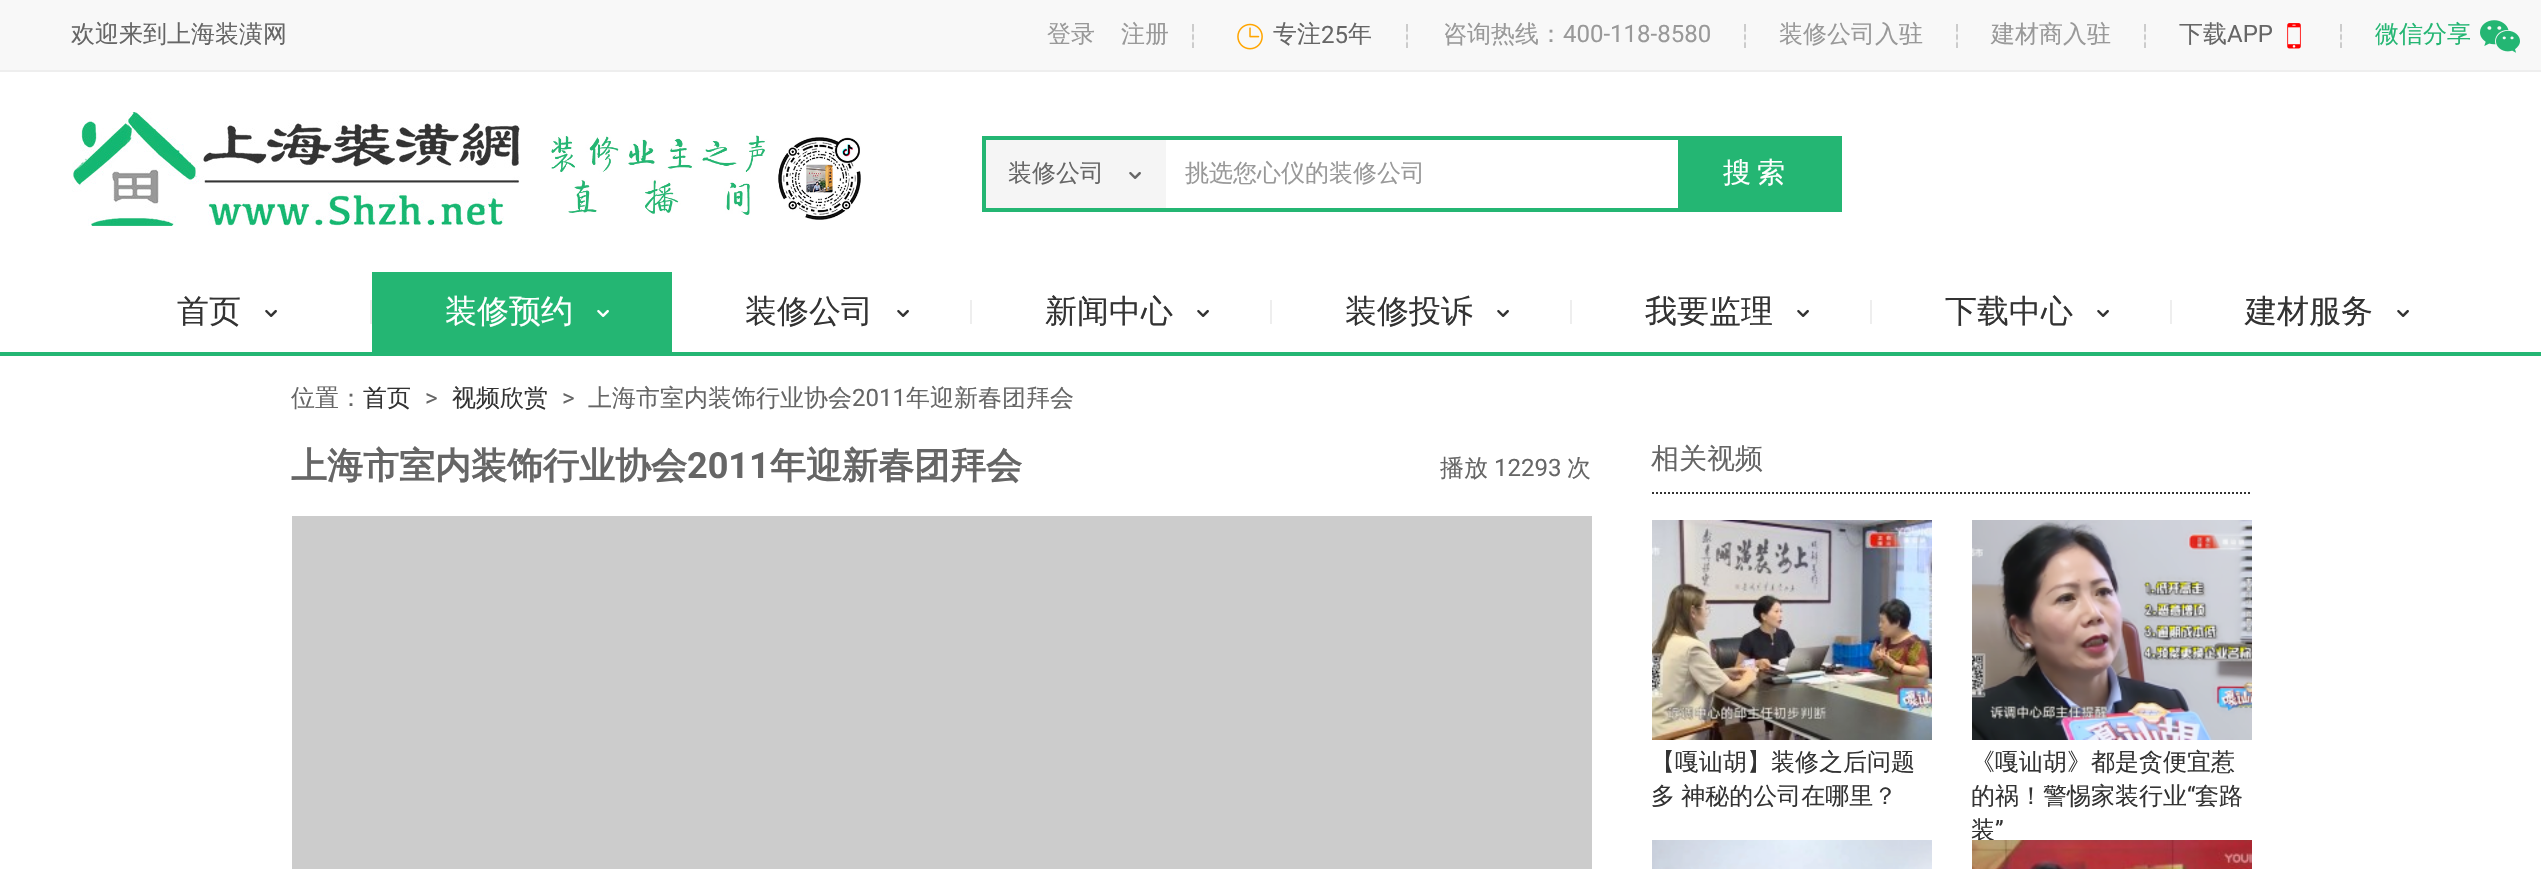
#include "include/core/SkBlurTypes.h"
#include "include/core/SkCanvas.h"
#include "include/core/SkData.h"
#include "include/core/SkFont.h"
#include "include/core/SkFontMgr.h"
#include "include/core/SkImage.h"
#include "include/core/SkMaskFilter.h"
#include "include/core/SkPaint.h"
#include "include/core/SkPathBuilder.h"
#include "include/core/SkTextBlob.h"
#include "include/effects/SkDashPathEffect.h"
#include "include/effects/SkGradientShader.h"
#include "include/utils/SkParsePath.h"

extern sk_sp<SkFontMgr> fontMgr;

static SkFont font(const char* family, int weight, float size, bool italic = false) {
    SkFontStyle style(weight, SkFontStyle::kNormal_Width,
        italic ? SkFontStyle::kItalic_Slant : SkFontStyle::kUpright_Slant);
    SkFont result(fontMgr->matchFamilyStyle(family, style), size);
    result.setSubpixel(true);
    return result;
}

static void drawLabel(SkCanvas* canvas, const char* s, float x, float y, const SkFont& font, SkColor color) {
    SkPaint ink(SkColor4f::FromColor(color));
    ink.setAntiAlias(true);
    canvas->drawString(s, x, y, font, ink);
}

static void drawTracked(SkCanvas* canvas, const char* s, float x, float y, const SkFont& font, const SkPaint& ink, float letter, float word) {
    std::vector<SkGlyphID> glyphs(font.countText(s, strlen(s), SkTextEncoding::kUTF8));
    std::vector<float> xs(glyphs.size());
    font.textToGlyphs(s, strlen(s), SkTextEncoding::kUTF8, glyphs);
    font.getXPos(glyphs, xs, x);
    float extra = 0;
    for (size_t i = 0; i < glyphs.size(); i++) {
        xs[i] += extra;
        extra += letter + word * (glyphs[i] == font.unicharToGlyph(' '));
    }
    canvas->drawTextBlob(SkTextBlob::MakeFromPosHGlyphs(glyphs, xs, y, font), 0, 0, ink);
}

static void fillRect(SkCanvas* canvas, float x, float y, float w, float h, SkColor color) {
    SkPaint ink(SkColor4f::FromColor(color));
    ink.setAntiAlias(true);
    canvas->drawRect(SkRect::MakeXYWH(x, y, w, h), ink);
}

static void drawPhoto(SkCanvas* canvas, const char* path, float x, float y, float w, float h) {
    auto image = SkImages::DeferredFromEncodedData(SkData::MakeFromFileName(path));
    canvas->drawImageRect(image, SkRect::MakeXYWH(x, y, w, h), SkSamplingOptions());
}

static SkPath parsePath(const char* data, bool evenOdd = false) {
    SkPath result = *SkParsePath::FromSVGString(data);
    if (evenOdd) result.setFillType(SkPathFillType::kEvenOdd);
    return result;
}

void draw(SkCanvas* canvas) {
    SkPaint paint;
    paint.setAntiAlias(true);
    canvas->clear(0xFFFFFFFF);
    fillRect(canvas, 0, 0, 2541, 70, 0xFFF8F8F8);
    fillRect(canvas, 0, 70, 2541, 2, 0xFFEEEEEE);
    SkFont font1 = font("WenQuanYi Zen Hei", 500, 24);
    drawLabel(canvas, "欢迎来到上海装潢网", 71, 42, font1, 0xFF666666);
    drawPhoto(canvas, "assets/img1.png", 1192, 24, 2, 24);
    drawLabel(canvas, "登录", 1047, 42, font1, 0xFF999999);
    drawLabel(canvas, "注册", 1121, 42, font1, 0xFF999999);
    drawPhoto(canvas, "assets/img1.png", 1406, 24, 2, 24);
    drawPhoto(canvas, "assets/img2.png", 1237, 23, 26, 27);
    drawLabel(canvas, "专注", 1273, 42, font1, 0xFF666666);
    SkFont font2 = font("Roboto", 400, 24);
    drawLabel(canvas, "25", 1321, 43, font2, 0xFF666666);
    drawLabel(canvas, "年", 1348, 42, font1, 0xFF666666);
    drawPhoto(canvas, "assets/img1.png", 1744, 24, 2, 24);
    drawLabel(canvas, "咨询热线：", 1443, 42, font1, 0xFF999999);
    drawLabel(canvas, "400-118-8580", 1563, 42, font2, 0xFF999999);
    drawPhoto(canvas, "assets/img1.png", 1956, 24, 2, 24);
    drawLabel(canvas, "装修公司入驻", 1779, 42, font1, 0xFF999999);
    drawPhoto(canvas, "assets/img1.png", 2144, 24, 2, 24);
    drawLabel(canvas, "建材商入驻", 1991, 42, font1, 0xFF999999);
    drawPhoto(canvas, "assets/img1.png", 2340, 24, 2, 24);
    drawLabel(canvas, "下载", 2179, 42, font1, 0xFF666666);
    drawLabel(canvas, "APP", 2227, 42, font2, 0xFF666666);
    drawPhoto(canvas, "assets/img3.png", 2287, 23, 14, 26);
    drawLabel(canvas, "微信分享", 2375, 42, font1, 0xFF24B673);
    drawPhoto(canvas, "assets/img4.png", 2480, 20, 40, 33);
    drawPhoto(canvas, "assets/img5.png", 72, 112, 448, 114);
    drawPhoto(canvas, "assets/img6.png", 551, 135, 310, 85);
    paint.setStroke(true);
    paint.setStrokeWidth(4);
    paint.setColor(0xFF24B673);
    canvas->drawRect(SkRect::MakeXYWH(984, 138, 856, 72), paint);
    fillRect(canvas, 986, 140, 180, 68, 0xFFF5F5F5);
    drawLabel(canvas, "装修公司", 1008, 181, font1, 0xFF666666);
    drawPhoto(canvas, "assets/img7.png", 1129, 172, 12, 7);
    drawLabel(canvas, "挑选您心仪的装修公司", 1185, 181, font1, 0xFF999999);
    fillRect(canvas, 1678, 140, 160, 68, 0xFF24B673);
    SkFont font3 = font("WenQuanYi Zen Hei", 500, 28);
    paint.setStroke(false);
    paint.setColor(0xFFFFFFFF);
    drawTracked(canvas, "搜索", 1723, 182, font3, paint, 6, 0);
    fillRect(canvas, 0, 352, 2541, 4, 0xFF24B673);
    SkFont font4 = font("WenQuanYi Zen Hei", 500, 32);
    drawLabel(canvas, "首页", 177, 322, font4, 0xFF333333);
    drawPhoto(canvas, "assets/img8.png", 265, 309, 12, 8);
    fillRect(canvas, 370, 300, 2, 24, 0xFFEEEEEE);
    fillRect(canvas, 372, 272, 300, 80, 0xFF24B673);
    drawLabel(canvas, "装修预约", 445, 322, font4, 0xFFFFFFFF);
    drawPhoto(canvas, "assets/img9.png", 597, 309, 12, 8);
    drawLabel(canvas, "装修公司", 745, 322, font4, 0xFF333333);
    drawPhoto(canvas, "assets/img8.png", 897, 309, 12, 8);
    fillRect(canvas, 970, 300, 2, 24, 0xFFEEEEEE);
    drawLabel(canvas, "新闻中心", 1045, 322, font4, 0xFF333333);
    drawPhoto(canvas, "assets/img8.png", 1197, 309, 12, 8);
    fillRect(canvas, 1270, 300, 2, 24, 0xFFEEEEEE);
    drawLabel(canvas, "装修投诉", 1345, 322, font4, 0xFF333333);
    drawPhoto(canvas, "assets/img8.png", 1497, 309, 12, 8);
    fillRect(canvas, 1570, 300, 2, 24, 0xFFEEEEEE);
    drawLabel(canvas, "我要监理", 1645, 322, font4, 0xFF333333);
    drawPhoto(canvas, "assets/img8.png", 1797, 309, 12, 8);
    fillRect(canvas, 1870, 300, 2, 24, 0xFFEEEEEE);
    drawLabel(canvas, "下载中心", 1945, 322, font4, 0xFF333333);
    drawPhoto(canvas, "assets/img8.png", 2097, 309, 12, 8);
    fillRect(canvas, 2170, 300, 2, 24, 0xFFEEEEEE);
    drawLabel(canvas, "建材服务", 2245, 322, font4, 0xFF333333);
    drawPhoto(canvas, "assets/img8.png", 2397, 309, 12, 8);
    drawLabel(canvas, "位置：", 291, 406, font1, 0xFF666666);
    drawLabel(canvas, "首页", 363, 406, font1, 0xFF333333);
    drawLabel(canvas, ">", 425, 406, font2, 0xFF666666);
    drawLabel(canvas, "视频欣赏", 452, 406, font1, 0xFF333333);
    drawLabel(canvas, ">", 562, 406, font2, 0xFF666666);
    drawLabel(canvas, "上海市室内装饰行业协会", 588, 406, font1, 0xFF666666);
    drawLabel(canvas, "2011", 852, 406, font2, 0xFF666666);
    drawLabel(canvas, "年迎新春团拜会", 906, 406, font1, 0xFF666666);
    SkFont font5 = font("WenQuanYi Zen Hei", 700, 36);
    drawLabel(canvas, "上海市室内装饰行业协会", 291, 478, font5, 0xFF666666);
    SkFont font6 = font("Roboto", 700, 36);
    drawLabel(canvas, "2011", 687, 478, font6, 0xFF666666);
    drawLabel(canvas, "年迎新春团拜会", 770, 478, font5, 0xFF666666);
    drawLabel(canvas, "播放", 1440, 476, font1, 0xFF666666);
    drawLabel(canvas, "12293", 1494, 476, font2, 0xFF666666);
    drawLabel(canvas, "次", 1567, 476, font1, 0xFF666666);
    fillRect(canvas, 292, 516, 1300, 353, 0xFFCCCCCC);
    paint.setStroke(true);
    paint.setStrokeWidth(2);
    paint.setColor(0xFF333333);
    paint.setPathEffect(SkDashPathEffect::Make({{2, 2}}, 0));
    canvas->drawPath(parsePath("M1652 493H2252"), paint);
    paint.setPathEffect(nullptr);
    drawLabel(canvas, "相关视频", 1651, 468, font3, 0xFF666666);
    drawPhoto(canvas, "assets/img10.png", 1652, 520, 280, 220);
    drawLabel(canvas, "【嘎讪胡】装修之后问题", 1651, 770, font1, 0xFF333333);
    paint.setStroke(false);
    drawTracked(canvas, "多 神秘的公司在哪里？", 1651, 804, font1, paint, 0, -1);
    drawPhoto(canvas, "assets/img11.png", 1972, 520, 280, 220);
    drawLabel(canvas, "《嘎讪胡》都是贪便宜惹", 1971, 770, font1, 0xFF333333);
    drawLabel(canvas, "的祸！警惕家装行业", 1971, 804, font1, 0xFF333333);
    drawLabel(canvas, "“", 2187, 804, font2, 0xFF333333);
    drawLabel(canvas, "套路", 2195, 804, font1, 0xFF333333);
    drawLabel(canvas, "装", 1971, 838, font1, 0xFF333333);
    drawLabel(canvas, "”", 1995, 838, font2, 0xFF333333);
    drawPhoto(canvas, "assets/img12.png", 1652, 840, 280, 29);
    drawPhoto(canvas, "assets/img13.png", 1972, 840, 280, 29);
}
